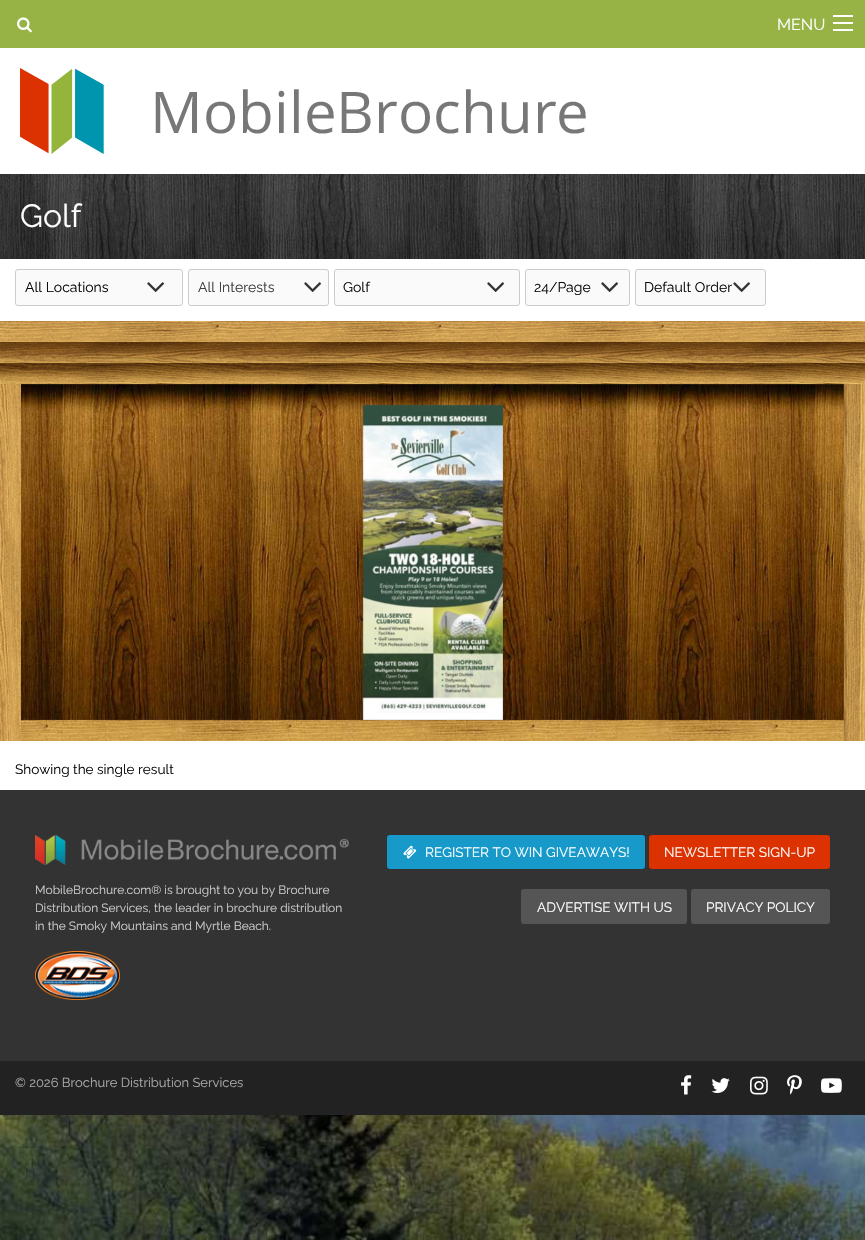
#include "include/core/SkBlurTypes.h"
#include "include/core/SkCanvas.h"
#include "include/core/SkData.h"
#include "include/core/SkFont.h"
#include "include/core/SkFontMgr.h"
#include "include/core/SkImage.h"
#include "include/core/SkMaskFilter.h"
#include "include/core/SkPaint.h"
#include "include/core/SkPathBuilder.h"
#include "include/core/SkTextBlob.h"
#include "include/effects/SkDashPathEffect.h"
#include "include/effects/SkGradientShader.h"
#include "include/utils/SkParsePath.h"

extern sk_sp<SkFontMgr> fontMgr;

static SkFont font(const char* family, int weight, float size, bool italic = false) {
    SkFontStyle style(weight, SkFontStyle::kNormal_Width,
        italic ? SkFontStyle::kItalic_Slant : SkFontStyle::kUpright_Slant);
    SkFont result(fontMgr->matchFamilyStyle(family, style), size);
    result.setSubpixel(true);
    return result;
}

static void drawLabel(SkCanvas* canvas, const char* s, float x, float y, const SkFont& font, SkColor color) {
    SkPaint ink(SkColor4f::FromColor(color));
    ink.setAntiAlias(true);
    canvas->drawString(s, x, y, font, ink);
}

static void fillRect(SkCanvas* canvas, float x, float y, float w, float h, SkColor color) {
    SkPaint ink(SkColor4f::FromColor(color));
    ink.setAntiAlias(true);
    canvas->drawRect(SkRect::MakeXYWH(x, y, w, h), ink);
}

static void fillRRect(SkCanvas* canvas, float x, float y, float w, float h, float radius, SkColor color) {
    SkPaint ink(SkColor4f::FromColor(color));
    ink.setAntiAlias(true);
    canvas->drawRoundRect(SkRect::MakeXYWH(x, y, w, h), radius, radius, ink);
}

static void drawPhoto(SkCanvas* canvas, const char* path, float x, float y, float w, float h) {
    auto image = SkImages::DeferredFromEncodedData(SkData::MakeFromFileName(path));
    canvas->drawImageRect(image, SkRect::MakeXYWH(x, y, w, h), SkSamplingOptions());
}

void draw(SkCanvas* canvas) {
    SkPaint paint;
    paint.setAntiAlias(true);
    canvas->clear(0xFFFFFFFF);
    fillRect(canvas, 0, 0, 865, 48, 0xFF97B345);
    drawPhoto(canvas, "assets/img1.png", 17, 17, 15, 16);
    SkFont font1 = font("Raleway", 400, 16);
    drawLabel(canvas, "MENU", 777, 30, font1, 0xFFFFFFFF);
    fillRect(canvas, 833, 29, 20, 2, 0xFFFEFEFE);
    fillRect(canvas, 833, 22, 20, 2, 0xFFFEFEFE);
    fillRect(canvas, 833, 15, 20, 2, 0xFFFEFEFE);
    drawPhoto(canvas, "assets/img2.png", 20, 68, 566, 86);
    drawPhoto(canvas, "assets/img3.png", 0, 174, 865, 85);
    SkFont font2 = font("Raleway", 400, 32);
    drawLabel(canvas, "Golf", 20, 227, font2, 0xFFFFFFFF);
    fillRRect(canvas, 15, 269, 168, 37, 3, 0xFFFAFAFA);
    drawPhoto(canvas, "assets/img4.png", 147, 282, 17, 10);
    paint.setStroke(true);
    paint.setStrokeWidth(1);
    paint.setColor(0xFFCCCCCC);
    canvas->drawRoundRect(SkRect::MakeXYWH(15.5f, 269.5f, 167, 36), 2.5f, 2.5f, paint);
    SkFont font3 = font("Raleway", 400, 14);
    drawLabel(canvas, "All Locations", 25, 292, font3, 0xFF0A0A0A);
    fillRRect(canvas, 188, 269, 141, 37, 3, 0xFFFAFAFA);
    drawPhoto(canvas, "assets/img4.png", 304, 282, 17, 10);
    canvas->drawRoundRect(SkRect::MakeXYWH(188.5f, 269.5f, 140, 36), 2.5f, 2.5f, paint);
    drawLabel(canvas, "All Interests", 198, 292, font3, 0xFF3F3F3F);
    fillRRect(canvas, 334, 269, 186, 37, 3, 0xFFFAFAFA);
    drawPhoto(canvas, "assets/img4.png", 487, 282, 17, 10);
    canvas->drawRoundRect(SkRect::MakeXYWH(334.5f, 269.5f, 185, 36), 2.5f, 2.5f, paint);
    drawLabel(canvas, "Golf", 343, 292, font3, 0xFF0A0A0A);
    fillRRect(canvas, 525, 269, 105, 37, 3, 0xFFFAFAFA);
    drawPhoto(canvas, "assets/img4.png", 601, 282, 17, 10);
    canvas->drawRoundRect(SkRect::MakeXYWH(525.5f, 269.5f, 104, 36), 2.5f, 2.5f, paint);
    drawLabel(canvas, "24/Page", 534, 292, font3, 0xFF0A0A0A);
    fillRRect(canvas, 635, 269, 131, 37, 3, 0xFFFAFAFA);
    drawPhoto(canvas, "assets/img4.png", 733, 282, 17, 10);
    canvas->drawRoundRect(SkRect::MakeXYWH(635.5f, 269.5f, 130, 36), 2.5f, 2.5f, paint);
    drawLabel(canvas, "Default Order", 644, 292, font3, 0xFF0A0A0A);
    drawPhoto(canvas, "assets/img5.png", 0, 321, 865, 63);
    drawPhoto(canvas, "assets/img6.png", 0, 384, 865, 357);
    drawPhoto(canvas, "assets/img7.png", 21, 383, 823, 358);
    drawPhoto(canvas, "assets/img8.png", 362, 404, 141, 316);
    SkFont font4 = font("Raleway", 400, 13.6f);
    drawLabel(canvas, "Showing the single result", 15, 774, font4, 0xFF0A0A0A);
    fillRect(canvas, 0, 790, 865, 271, 0xFF333333);
    drawPhoto(canvas, "assets/img9.png", 35, 835, 314, 30);
    SkFont font5 = font("Raleway", 400, 12);
    drawLabel(canvas, "MobileBrochure.com® is brought to you by Brochure", 35, 894, font5, 0xFFCCCCCC);
    drawLabel(canvas, "Distribution Services, the leader in brochure distribution", 35, 912, font5, 0xFFCCCCCC);
    drawLabel(canvas, "in the Smoky Mountains and Myrtle Beach.", 35, 930, font5, 0xFFCCCCCC);
    drawPhoto(canvas, "assets/img10.png", 35, 951, 85, 49);
    fillRRect(canvas, 387, 835, 258, 34, 3, 0xFF179ACA);
    drawPhoto(canvas, "assets/img11.png", 403, 845, 14, 14);
    drawLabel(canvas, "REGISTER TO WIN GIVEAWAYS!", 425, 857, font4, 0xFFFFFFFF);
    fillRRect(canvas, 649, 835, 181, 34, 3, 0xFFDC3100);
    drawLabel(canvas, "NEWSLETTER SIGN-UP", 664, 857, font4, 0xFFFFFFFF);
    fillRRect(canvas, 521, 889, 166, 35, 3, 0xFF555555);
    drawLabel(canvas, "ADVERTISE WITH US", 537, 912, font4, 0xFFFFFFFF);
    fillRRect(canvas, 691, 889, 139, 35, 3, 0xFF555555);
    drawLabel(canvas, "PRIVACY POLICY", 706, 912, font4, 0xFFFFFFFF);
    fillRect(canvas, 0, 1061, 865, 54, 0xFF222222);
    SkFont font6 = font("Raleway", 400, 13);
    drawLabel(canvas, "© 2026 Brochure Distribution Services", 15, 1087, font6, 0xFFAAAAAA);
    drawPhoto(canvas, "assets/img12.png", 681, 1075, 11, 20);
    drawPhoto(canvas, "assets/img13.png", 711, 1078, 19, 15);
    drawPhoto(canvas, "assets/img14.png", 750, 1076, 18, 19);
    drawPhoto(canvas, "assets/img15.png", 787, 1075, 15, 20);
    drawPhoto(canvas, "assets/img16.png", 821, 1078, 21, 15);
    drawPhoto(canvas, "assets/img17.png", 0, 1115, 865, 125);
}
